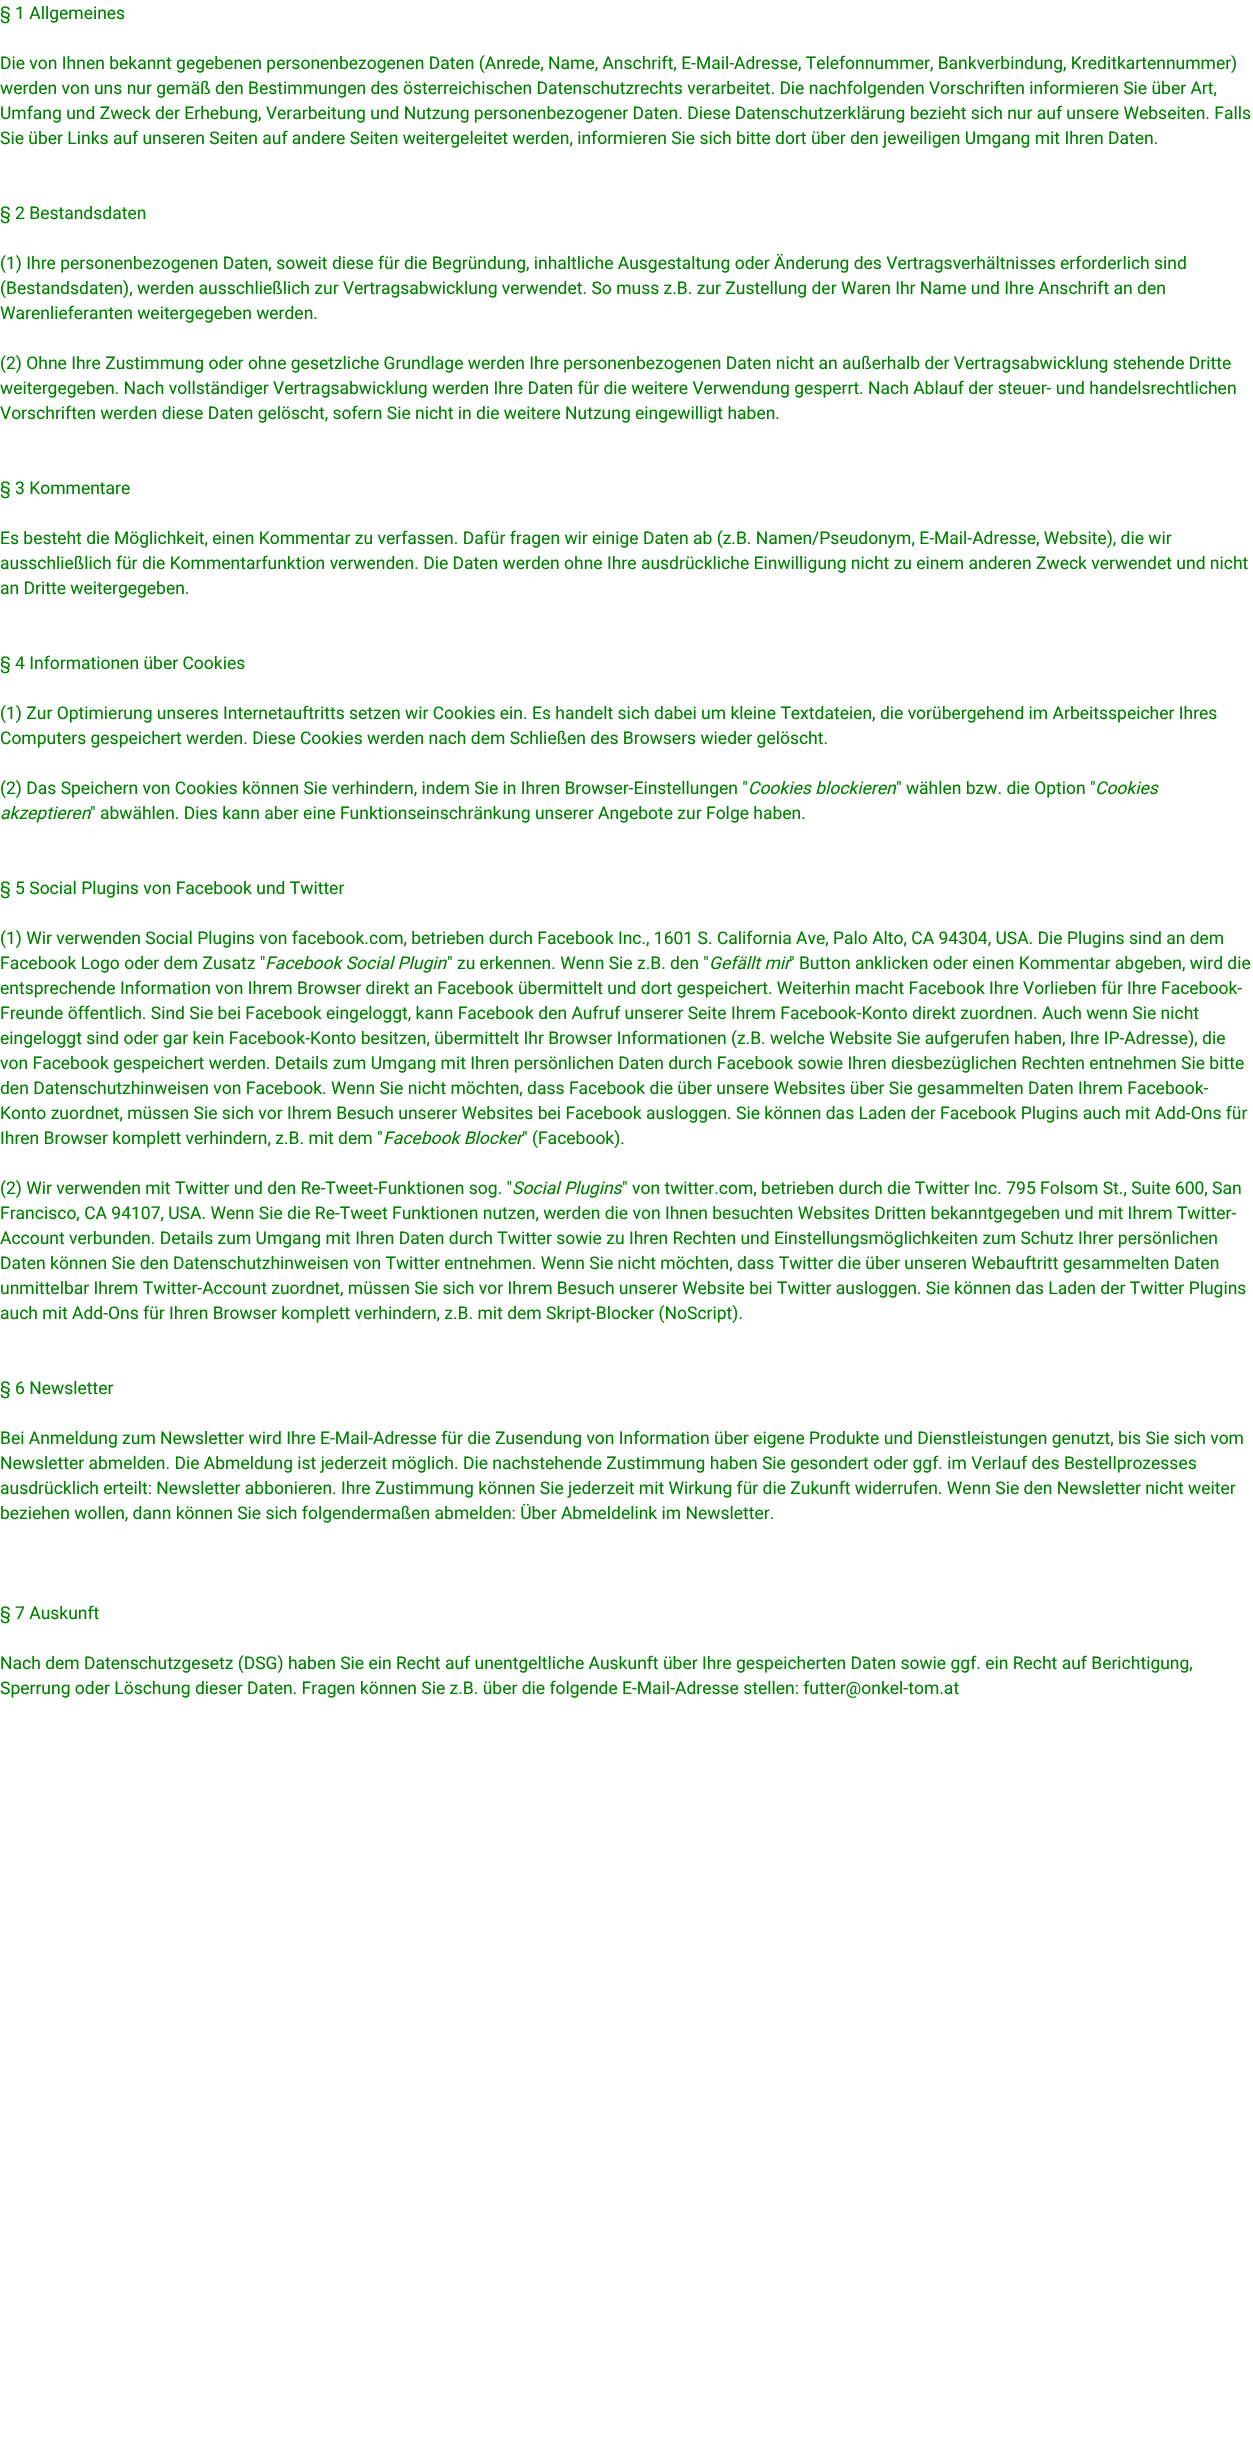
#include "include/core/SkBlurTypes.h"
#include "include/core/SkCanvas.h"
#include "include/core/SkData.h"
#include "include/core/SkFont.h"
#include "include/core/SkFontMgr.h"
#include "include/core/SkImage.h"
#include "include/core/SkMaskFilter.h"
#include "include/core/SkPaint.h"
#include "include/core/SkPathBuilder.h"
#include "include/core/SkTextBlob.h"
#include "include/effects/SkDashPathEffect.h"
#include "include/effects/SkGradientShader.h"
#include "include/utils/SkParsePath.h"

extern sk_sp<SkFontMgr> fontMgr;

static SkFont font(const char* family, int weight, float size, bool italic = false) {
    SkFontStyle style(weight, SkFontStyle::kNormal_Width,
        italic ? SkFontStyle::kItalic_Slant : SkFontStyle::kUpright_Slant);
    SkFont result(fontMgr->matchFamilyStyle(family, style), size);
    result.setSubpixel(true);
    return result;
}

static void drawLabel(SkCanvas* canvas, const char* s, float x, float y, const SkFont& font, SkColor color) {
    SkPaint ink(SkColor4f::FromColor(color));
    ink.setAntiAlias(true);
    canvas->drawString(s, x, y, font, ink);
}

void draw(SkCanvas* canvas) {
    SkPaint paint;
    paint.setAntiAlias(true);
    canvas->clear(0xFFFFFFFF);
    SkFont font1 = font("Roboto", 400, 17.5f);
    drawLabel(canvas, "§ 1 Allgemeines", 0, 19, font1, 0xFF008000);
    drawLabel(canvas, "Die von Ihnen bekannt gegebenen personenbezogenen Daten (Anrede, Name, Anschrift, E-Mail-Adresse, Telefonnummer, Bankverbindung, Kreditkartennummer)", 0, 69, font1, 0xFF008000);
    drawLabel(canvas, "werden von uns nur gemäß den Bestimmungen des österreichischen Datenschutzrechts verarbeitet. Die nachfolgenden Vorschriften informieren Sie über Art,", 0, 94, font1, 0xFF008000);
    drawLabel(canvas, "Umfang und Zweck der Erhebung, Verarbeitung und Nutzung personenbezogener Daten. Diese Datenschutzerklärung bezieht sich nur auf unsere Webseiten. Falls", 0, 119, font1, 0xFF008000);
    drawLabel(canvas, "Sie über Links auf unseren Seiten auf andere Seiten weitergeleitet werden, informieren Sie sich bitte dort über den jeweiligen Umgang mit Ihren Daten.", 0, 144, font1, 0xFF008000);
    drawLabel(canvas, "§ 2 Bestandsdaten", 0, 219, font1, 0xFF008000);
    drawLabel(canvas, "(1) Ihre personenbezogenen Daten, soweit diese für die Begründung, inhaltliche Ausgestaltung oder Änderung des Vertragsverhältnisses erforderlich sind", 0, 269, font1, 0xFF008000);
    drawLabel(canvas, "(Bestandsdaten), werden ausschließlich zur Vertragsabwicklung verwendet. So muss z.B. zur Zustellung der Waren Ihr Name und Ihre Anschrift an den", 0, 294, font1, 0xFF008000);
    drawLabel(canvas, "Warenlieferanten weitergegeben werden.", 0, 319, font1, 0xFF008000);
    drawLabel(canvas, "(2) Ohne Ihre Zustimmung oder ohne gesetzliche Grundlage werden Ihre personenbezogenen Daten nicht an außerhalb der Vertragsabwicklung stehende Dritte", 0, 369, font1, 0xFF008000);
    drawLabel(canvas, "weitergegeben. Nach vollständiger Vertragsabwicklung werden Ihre Daten für die weitere Verwendung gesperrt. Nach Ablauf der steuer- und handelsrechtlichen", 0, 394, font1, 0xFF008000);
    drawLabel(canvas, "Vorschriften werden diese Daten gelöscht, sofern Sie nicht in die weitere Nutzung eingewilligt haben.", 0, 419, font1, 0xFF008000);
    drawLabel(canvas, "§ 3 Kommentare", 0, 494, font1, 0xFF008000);
    drawLabel(canvas, "Es besteht die Möglichkeit, einen Kommentar zu verfassen. Dafür fragen wir einige Daten ab (z.B. Namen/Pseudonym, E-Mail-Adresse, Website), die wir", 0, 544, font1, 0xFF008000);
    drawLabel(canvas, "ausschließlich für die Kommentarfunktion verwenden. Die Daten werden ohne Ihre ausdrückliche Einwilligung nicht zu einem anderen Zweck verwendet und nicht", 0, 569, font1, 0xFF008000);
    drawLabel(canvas, "an Dritte weitergegeben.", 0, 594, font1, 0xFF008000);
    drawLabel(canvas, "§ 4 Informationen über Cookies", 0, 669, font1, 0xFF008000);
    drawLabel(canvas, "(1) Zur Optimierung unseres Internetauftritts setzen wir Cookies ein. Es handelt sich dabei um kleine Textdateien, die vorübergehend im Arbeitsspeicher Ihres", 0, 719, font1, 0xFF008000);
    drawLabel(canvas, "Computers gespeichert werden. Diese Cookies werden nach dem Schließen des Browsers wieder gelöscht.", 0, 744, font1, 0xFF008000);
    drawLabel(canvas, "(2) Das Speichern von Cookies können Sie verhindern, indem Sie in Ihren Browser-Einstellungen \"", 0, 794, font1, 0xFF008000);
    SkFont font2 = font("Roboto", 400, 17.5f, true);
    drawLabel(canvas, "Cookies blockieren", 748, 794, font2, 0xFF008000);
    drawLabel(canvas, "\" wählen bzw. die Option \"", 896, 794, font1, 0xFF008000);
    drawLabel(canvas, "Cookies", 1095, 794, font2, 0xFF008000);
    drawLabel(canvas, "akzeptieren", 0, 819, font2, 0xFF008000);
    drawLabel(canvas, "\" abwählen. Dies kann aber eine Funktionseinschränkung unserer Angebote zur Folge haben.", 90, 819, font1, 0xFF008000);
    drawLabel(canvas, "§ 5 Social Plugins von Facebook und Twitter", 0, 894, font1, 0xFF008000);
    drawLabel(canvas, "(1) Wir verwenden Social Plugins von facebook.com, betrieben durch Facebook Inc., 1601 S. California Ave, Palo Alto, CA 94304, USA. Die Plugins sind an dem", 0, 944, font1, 0xFF008000);
    drawLabel(canvas, "Facebook Logo oder dem Zusatz \"", 0, 969, font1, 0xFF008000);
    drawLabel(canvas, "Facebook Social Plugin", 265, 969, font2, 0xFF008000);
    drawLabel(canvas, "\" zu erkennen. Wenn Sie z.B. den \"", 447, 969, font1, 0xFF008000);
    drawLabel(canvas, "Gefällt mir", 709, 969, font2, 0xFF008000);
    drawLabel(canvas, "\" Button anklicken oder einen Kommentar abgeben, wird die", 789, 969, font1, 0xFF008000);
    drawLabel(canvas, "entsprechende Information von Ihrem Browser direkt an Facebook übermittelt und dort gespeichert. Weiterhin macht Facebook Ihre Vorlieben für Ihre Facebook-", 0, 994, font1, 0xFF008000);
    drawLabel(canvas, "Freunde öffentlich. Sind Sie bei Facebook eingeloggt, kann Facebook den Aufruf unserer Seite Ihrem Facebook-Konto direkt zuordnen. Auch wenn Sie nicht", 0, 1019, font1, 0xFF008000);
    drawLabel(canvas, "eingeloggt sind oder gar kein Facebook-Konto besitzen, übermittelt Ihr Browser Informationen (z.B. welche Website Sie aufgerufen haben, Ihre IP-Adresse), die", 0, 1044, font1, 0xFF008000);
    drawLabel(canvas, "von Facebook gespeichert werden. Details zum Umgang mit Ihren persönlichen Daten durch Facebook sowie Ihren diesbezüglichen Rechten entnehmen Sie bitte", 0, 1069, font1, 0xFF008000);
    drawLabel(canvas, "den Datenschutzhinweisen von Facebook. Wenn Sie nicht möchten, dass Facebook die über unsere Websites über Sie gesammelten Daten Ihrem Facebook-", 0, 1094, font1, 0xFF008000);
    drawLabel(canvas, "Konto zuordnet, müssen Sie sich vor Ihrem Besuch unserer Websites bei Facebook ausloggen. Sie können das Laden der Facebook Plugins auch mit Add-Ons für", 0, 1119, font1, 0xFF008000);
    drawLabel(canvas, "Ihren Browser komplett verhindern, z.B. mit dem \"", 0, 1144, font1, 0xFF008000);
    drawLabel(canvas, "Facebook Blocker", 383, 1144, font2, 0xFF008000);
    drawLabel(canvas, "\" (Facebook).", 522, 1144, font1, 0xFF008000);
    drawLabel(canvas, "(2) Wir verwenden mit Twitter und den Re-Tweet-Funktionen sog. \"", 0, 1194, font1, 0xFF008000);
    drawLabel(canvas, "Social Plugins", 512, 1194, font2, 0xFF008000);
    drawLabel(canvas, "\" von twitter.com, betrieben durch die Twitter Inc. 795 Folsom St., Suite 600, San", 622, 1194, font1, 0xFF008000);
    drawLabel(canvas, "Francisco, CA 94107, USA. Wenn Sie die Re-Tweet Funktionen nutzen, werden die von Ihnen besuchten Websites Dritten bekanntgegeben und mit Ihrem Twitter-", 0, 1219, font1, 0xFF008000);
    drawLabel(canvas, "Account verbunden. Details zum Umgang mit Ihren Daten durch Twitter sowie zu Ihren Rechten und Einstellungsmöglichkeiten zum Schutz Ihrer persönlichen", 0, 1244, font1, 0xFF008000);
    drawLabel(canvas, "Daten können Sie den Datenschutzhinweisen von Twitter entnehmen. Wenn Sie nicht möchten, dass Twitter die über unseren Webauftritt gesammelten Daten", 0, 1269, font1, 0xFF008000);
    drawLabel(canvas, "unmittelbar Ihrem Twitter-Account zuordnet, müssen Sie sich vor Ihrem Besuch unserer Website bei Twitter ausloggen. Sie können das Laden der Twitter Plugins", 0, 1294, font1, 0xFF008000);
    drawLabel(canvas, "auch mit Add-Ons für Ihren Browser komplett verhindern, z.B. mit dem Skript-Blocker (NoScript).", 0, 1319, font1, 0xFF008000);
    drawLabel(canvas, "§ 6 Newsletter", 0, 1394, font1, 0xFF008000);
    drawLabel(canvas, "Bei Anmeldung zum Newsletter wird Ihre E-Mail-Adresse für die Zusendung von Information über eigene Produkte und Dienstleistungen genutzt, bis Sie sich vom", 0, 1444, font1, 0xFF008000);
    drawLabel(canvas, "Newsletter abmelden. Die Abmeldung ist jederzeit möglich. Die nachstehende Zustimmung haben Sie gesondert oder ggf. im Verlauf des Bestellprozesses", 0, 1469, font1, 0xFF008000);
    drawLabel(canvas, "ausdrücklich erteilt: Newsletter abbonieren. Ihre Zustimmung können Sie jederzeit mit Wirkung für die Zukunft widerrufen. Wenn Sie den Newsletter nicht weiter", 0, 1494, font1, 0xFF008000);
    drawLabel(canvas, "beziehen wollen, dann können Sie sich folgendermaßen abmelden: Über Abmeldelink im Newsletter.", 0, 1519, font1, 0xFF008000);
    drawLabel(canvas, "§ 7 Auskunft", 0, 1619, font1, 0xFF008000);
    drawLabel(canvas, "Nach dem Datenschutzgesetz (DSG) haben Sie ein Recht auf unentgeltliche Auskunft über Ihre gespeicherten Daten sowie ggf. ein Recht auf Berichtigung,", 0, 1669, font1, 0xFF008000);
    drawLabel(canvas, "Sperrung oder Löschung dieser Daten. Fragen können Sie z.B. über die folgende E-Mail-Adresse stellen: futter@onkel-tom.at", 0, 1694, font1, 0xFF008000);
}
